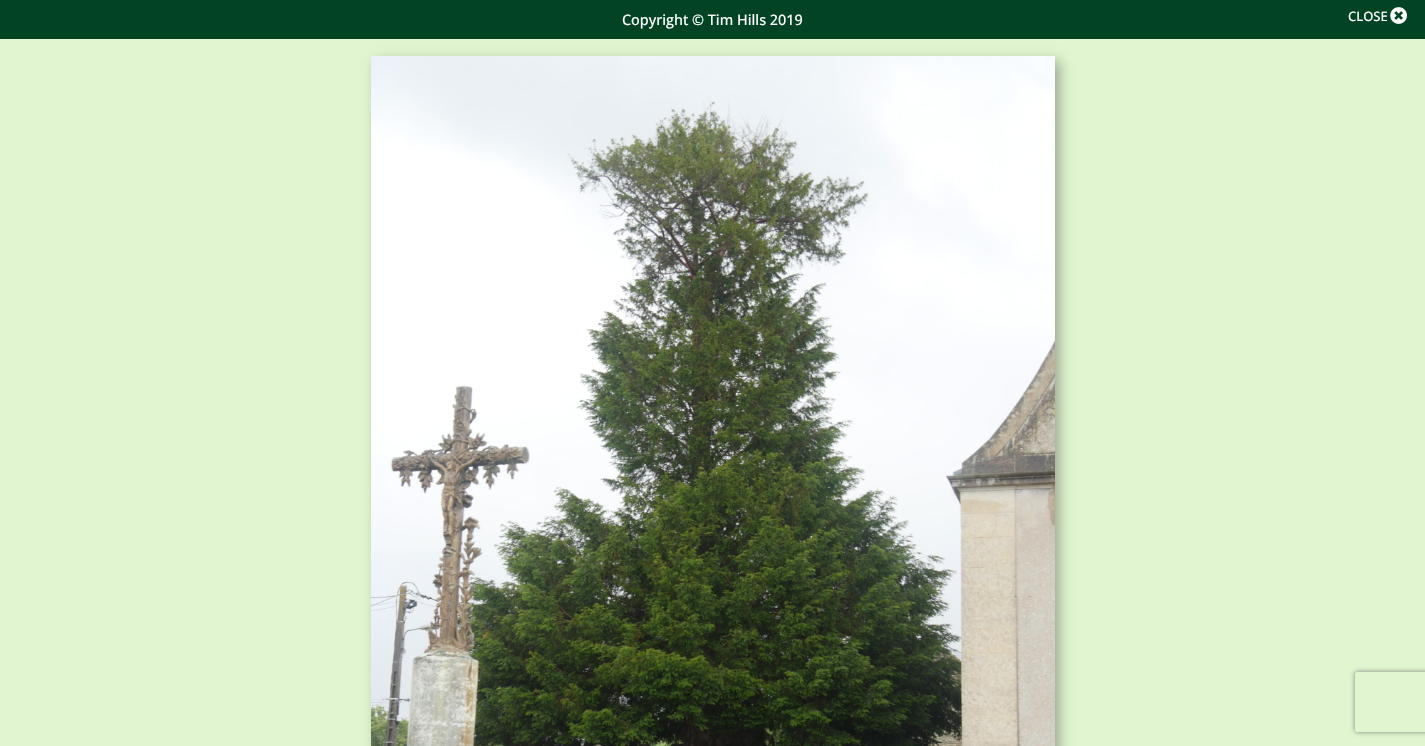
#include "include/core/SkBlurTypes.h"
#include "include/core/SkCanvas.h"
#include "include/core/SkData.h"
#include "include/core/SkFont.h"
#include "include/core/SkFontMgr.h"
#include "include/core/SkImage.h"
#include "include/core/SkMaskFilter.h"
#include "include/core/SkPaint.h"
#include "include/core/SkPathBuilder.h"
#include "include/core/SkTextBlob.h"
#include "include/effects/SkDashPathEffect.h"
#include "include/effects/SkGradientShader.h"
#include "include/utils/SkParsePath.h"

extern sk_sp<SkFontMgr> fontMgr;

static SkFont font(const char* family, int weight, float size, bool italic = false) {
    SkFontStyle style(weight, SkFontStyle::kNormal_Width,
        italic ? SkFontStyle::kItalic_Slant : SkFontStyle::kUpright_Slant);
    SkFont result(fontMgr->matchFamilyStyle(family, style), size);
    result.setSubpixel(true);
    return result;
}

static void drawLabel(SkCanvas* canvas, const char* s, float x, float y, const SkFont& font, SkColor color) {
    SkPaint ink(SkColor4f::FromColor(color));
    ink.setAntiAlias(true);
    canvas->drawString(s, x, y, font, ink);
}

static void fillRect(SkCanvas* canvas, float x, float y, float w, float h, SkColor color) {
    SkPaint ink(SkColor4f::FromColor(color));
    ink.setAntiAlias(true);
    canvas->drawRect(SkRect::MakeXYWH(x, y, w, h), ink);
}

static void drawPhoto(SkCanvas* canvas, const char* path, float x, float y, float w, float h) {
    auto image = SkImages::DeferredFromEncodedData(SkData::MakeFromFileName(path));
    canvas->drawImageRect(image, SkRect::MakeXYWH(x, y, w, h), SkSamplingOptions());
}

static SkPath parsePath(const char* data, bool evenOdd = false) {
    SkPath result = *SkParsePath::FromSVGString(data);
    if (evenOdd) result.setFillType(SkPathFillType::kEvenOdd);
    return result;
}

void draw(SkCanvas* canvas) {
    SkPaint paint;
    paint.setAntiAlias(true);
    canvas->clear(0xFFE0F5D0);
    fillRect(canvas, 0, 0, 1425, 39, 0xFF014323);
    SkFont font1 = font("Open Sans", 500, 14.4f);
    drawLabel(canvas, "Copyright © Tim Hills 2019", 622, 25, font1, 0xFFFFFFFF);
    SkFont font2 = font("Open Sans", 500, 13);
    drawLabel(canvas, "CLOSE", 1348, 21, font2, 0xFFFFFFFF);
    drawPhoto(canvas, "assets/img1.png", 1390, 7, 17, 17);
    paint.setColor(0x4D000000);
    paint.setMaskFilter(SkMaskFilter::MakeBlur(kNormal_SkBlurStyle, 6));
    canvas->drawRect(SkRect::MakeXYWH(376, 61, 684, 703), paint);
    paint.setMaskFilter(nullptr);
    drawPhoto(canvas, "assets/img2.png", 371, 56, 684, 690);
    canvas->save();
    canvas->clipPath(parsePath("M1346 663H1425V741H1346ZM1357 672H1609C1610 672 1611 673 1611 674V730C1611 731 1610 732 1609 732H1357C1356 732 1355 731 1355 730V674C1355 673 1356 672 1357 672Z", true), true);
    paint.setColor(0xFF808080);
    paint.setMaskFilter(SkMaskFilter::MakeBlur(kNormal_SkBlurStyle, 2.5f));
    canvas->drawRoundRect(SkRect::MakeXYWH(1355, 672, 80, 60), 2, 2, paint);
    paint.setMaskFilter(nullptr);
    canvas->restore();
}
